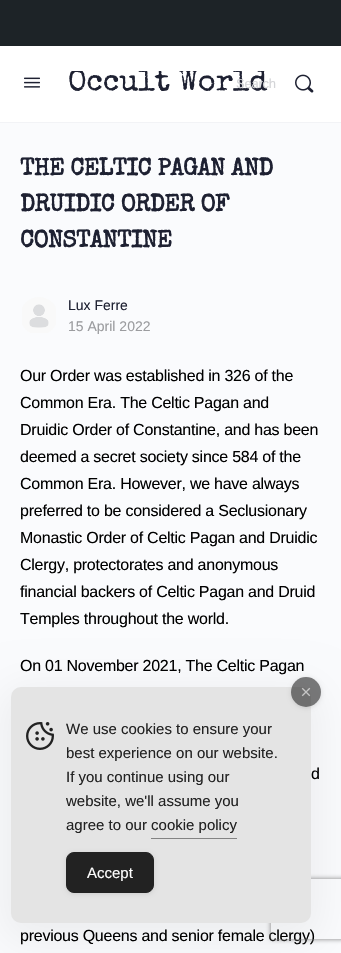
#include "include/core/SkBlurTypes.h"
#include "include/core/SkCanvas.h"
#include "include/core/SkData.h"
#include "include/core/SkFont.h"
#include "include/core/SkFontMgr.h"
#include "include/core/SkImage.h"
#include "include/core/SkMaskFilter.h"
#include "include/core/SkPaint.h"
#include "include/core/SkPathBuilder.h"
#include "include/core/SkTextBlob.h"
#include "include/effects/SkDashPathEffect.h"
#include "include/effects/SkGradientShader.h"
#include "include/utils/SkParsePath.h"

extern sk_sp<SkFontMgr> fontMgr;

static SkFont font(const char* family, int weight, float size, bool italic = false) {
    SkFontStyle style(weight, SkFontStyle::kNormal_Width,
        italic ? SkFontStyle::kItalic_Slant : SkFontStyle::kUpright_Slant);
    SkFont result(fontMgr->matchFamilyStyle(family, style), size);
    result.setSubpixel(true);
    return result;
}

static void drawLabel(SkCanvas* canvas, const char* s, float x, float y, const SkFont& font, SkColor color) {
    SkPaint ink(SkColor4f::FromColor(color));
    ink.setAntiAlias(true);
    canvas->drawString(s, x, y, font, ink);
}

static void drawTracked(SkCanvas* canvas, const char* s, float x, float y, const SkFont& font, const SkPaint& ink, float letter, float word) {
    std::vector<SkGlyphID> glyphs(font.countText(s, strlen(s), SkTextEncoding::kUTF8));
    std::vector<float> xs(glyphs.size());
    font.textToGlyphs(s, strlen(s), SkTextEncoding::kUTF8, glyphs);
    font.getXPos(glyphs, xs, x);
    float extra = 0;
    for (size_t i = 0; i < glyphs.size(); i++) {
        xs[i] += extra;
        extra += letter + word * (glyphs[i] == font.unicharToGlyph(' '));
    }
    canvas->drawTextBlob(SkTextBlob::MakeFromPosHGlyphs(glyphs, xs, y, font), 0, 0, ink);
}

static void fillRect(SkCanvas* canvas, float x, float y, float w, float h, SkColor color) {
    SkPaint ink(SkColor4f::FromColor(color));
    ink.setAntiAlias(true);
    canvas->drawRect(SkRect::MakeXYWH(x, y, w, h), ink);
}

static void fillRRect(SkCanvas* canvas, float x, float y, float w, float h, float radius, SkColor color) {
    SkPaint ink(SkColor4f::FromColor(color));
    ink.setAntiAlias(true);
    canvas->drawRoundRect(SkRect::MakeXYWH(x, y, w, h), radius, radius, ink);
}

static void drawPhoto(SkCanvas* canvas, const char* path, float x, float y, float w, float h) {
    auto image = SkImages::DeferredFromEncodedData(SkData::MakeFromFileName(path));
    canvas->drawImageRect(image, SkRect::MakeXYWH(x, y, w, h), SkSamplingOptions());
}

static SkPath parsePath(const char* data, bool evenOdd = false) {
    SkPath result = *SkParsePath::FromSVGString(data);
    if (evenOdd) result.setFillType(SkPathFillType::kEvenOdd);
    return result;
}

void draw(SkCanvas* canvas) {
    SkPaint paint;
    paint.setAntiAlias(true);
    canvas->clear(0xFFFAFBFD);
    fillRect(canvas, 0, 0, 341, 46, 0xFF1D2327);
    fillRect(canvas, 0, 122, 341, 1, 0xFFF2F3F6);
    fillRect(canvas, 0, 46, 341, 76, 0xFFFFFFFF);
    drawPhoto(canvas, "assets/img1.png", 24, 77, 16, 11);
    canvas->save();
    canvas->clipRect(SkRect::MakeXYWH(44, 71, 248, 27));
    SkFont font1 = font("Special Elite", 400, 30);
    drawLabel(canvas, "Occult World", 68, 90, font1, 0xFF1E2132);
    canvas->restore();
    SkFont font2 = font("Liberation Sans", 400, 13);
    paint.setColor(0xFFD4D5D8);
    drawTracked(canvas, "Search", 236, 88, font2, paint, -0.25f, 0);
    drawPhoto(canvas, "assets/img2.png", 295, 74, 19, 19);
    SkFont font3 = font("Special Elite", 700, 24);
    paint.setColor(0xFF1E2132);
    drawTracked(canvas, "THE CELTIC PAGAN AND", 20, 175, font3, paint, -0.5f, 0);
    drawTracked(canvas, "DRUIDIC ORDER OF", 20, 211, font3, paint, -0.5f, 0);
    drawTracked(canvas, "CONSTANTINE", 20, 247, font3, paint, -0.5f, 0);
    drawPhoto(canvas, "assets/img3.png", 22, 297, 34, 36);
    SkFont font4 = font("Liberation Sans", 400, 14);
    drawLabel(canvas, "Lux Ferre", 68, 310, font4, 0xFF1E2132);
    drawLabel(canvas, "15 April 2022", 68, 331, font4, 0xFF9B9C9F);
    SkFont font5 = font("Liberation Sans", 400, 16);
    paint.setColor(0xFF000000);
    drawTracked(canvas, "Our Order was established in 326 of the", 20, 381, font5, paint, -0.25f, 0);
    drawTracked(canvas, "Common Era. The Celtic Pagan and", 20, 408, font5, paint, -0.25f, 0);
    drawTracked(canvas, "Druidic Order of Constantine, and has been", 20, 435, font5, paint, -0.25f, 0);
    drawTracked(canvas, "deemed a secret society since 584 of the", 20, 462, font5, paint, -0.25f, 0);
    drawTracked(canvas, "Common Era. However, we have always", 20, 489, font5, paint, -0.25f, 0);
    drawTracked(canvas, "preferred to be considered a Seclusionary", 20, 516, font5, paint, -0.25f, 0);
    drawTracked(canvas, "Monastic Order of Celtic Pagan and Druidic", 20, 543, font5, paint, -0.25f, 0);
    drawTracked(canvas, "Clergy, protectorates and anonymous", 20, 570, font5, paint, -0.25f, 0);
    drawTracked(canvas, "financial backers of Celtic Pagan and Druid", 20, 597, font5, paint, -0.25f, 0);
    drawTracked(canvas, "Temples throughout the world.", 20, 624, font5, paint, -0.25f, 0);
    drawTracked(canvas, "On 01 November 2021, The Celtic Pagan", 20, 671, font5, paint, -0.25f, 0);
    drawTracked(canvas, "d", 311, 779, font5, paint, -0.25f, 0);
    drawTracked(canvas, "previous Queens and senior female clergy)", 20, 941, font5, paint, -0.25f, 0);
    paint.setColor(0x0D000000);
    paint.setMaskFilter(SkMaskFilter::MakeBlur(kNormal_SkBlurStyle, 20));
    canvas->drawRoundRect(SkRect::MakeXYWH(1, 687, 320, 256), 20, 20, paint);
    paint.setMaskFilter(nullptr);
    canvas->save();
    canvas->clipPath(parsePath("M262 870H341V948H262ZM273 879H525C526 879 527 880 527 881V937C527 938 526 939 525 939H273C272 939 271 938 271 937V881C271 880 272 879 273 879Z", true), true);
    paint.setColor(0xFF808080);
    paint.setMaskFilter(SkMaskFilter::MakeBlur(kNormal_SkBlurStyle, 2.5f));
    canvas->drawRoundRect(SkRect::MakeXYWH(271, 879, 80, 60), 2, 2, paint);
    paint.setMaskFilter(nullptr);
    canvas->restore();
    fillRRect(canvas, 11, 687, 300, 236, 10, 0xFFE4E4E4);
    canvas->save();
    canvas->clipPath(parsePath("M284 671H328V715H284ZM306 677C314.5 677 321 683.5 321 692C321 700.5 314.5 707 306 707C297.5 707 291 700.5 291 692C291 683.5 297.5 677 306 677Z", true), true);
    paint.setColor(0x1F000000);
    paint.setMaskFilter(SkMaskFilter::MakeBlur(kNormal_SkBlurStyle, 2));
    canvas->drawRoundRect(SkRect::MakeXYWH(291, 678, 30, 30), 15, 15, paint);
    paint.setMaskFilter(nullptr);
    canvas->restore();
    paint.setColor(0x99222222);
    canvas->drawCircle(306, 692, 15, paint);
    drawPhoto(canvas, "assets/img4.png", 301, 687, 10, 10);
    drawPhoto(canvas, "assets/img5.png", 26, 722, 28, 28);
    SkFont font6 = font("Liberation Sans", 400, 15);
    drawLabel(canvas, "We use cookies to ensure your", 66, 734, font6, 0xFF222222);
    drawLabel(canvas, "best experience on our website.", 66, 758, font6, 0xFF222222);
    drawLabel(canvas, "If you continue using our", 66, 782, font6, 0xFF222222);
    drawLabel(canvas, "website, we'll assume you", 66, 806, font6, 0xFF222222);
    drawLabel(canvas, "agree to our cookie policy", 66, 830, font6, 0xFF222222);
    fillRect(canvas, 151, 838, 86, 1, 0xFF838383);
    paint.setColor(0x1A000000);
    paint.setMaskFilter(SkMaskFilter::MakeBlur(kNormal_SkBlurStyle, 2));
    canvas->drawRoundRect(SkRect::MakeXYWH(66, 853, 88, 41), 8, 8, paint);
    paint.setMaskFilter(nullptr);
    paint.setColor(0xFF222222);
    canvas->drawRoundRect(SkRect::MakeXYWH(66.5f, 852.5f, 87, 40), 7.5f, 7.5f, paint);
    paint.setStroke(true);
    paint.setStrokeWidth(1);
    canvas->drawRoundRect(SkRect::MakeXYWH(66.5f, 852.5f, 87, 40), 7.5f, 7.5f, paint);
    drawLabel(canvas, "Accept", 87, 878, font6, 0xFFFFFFFF);
}
